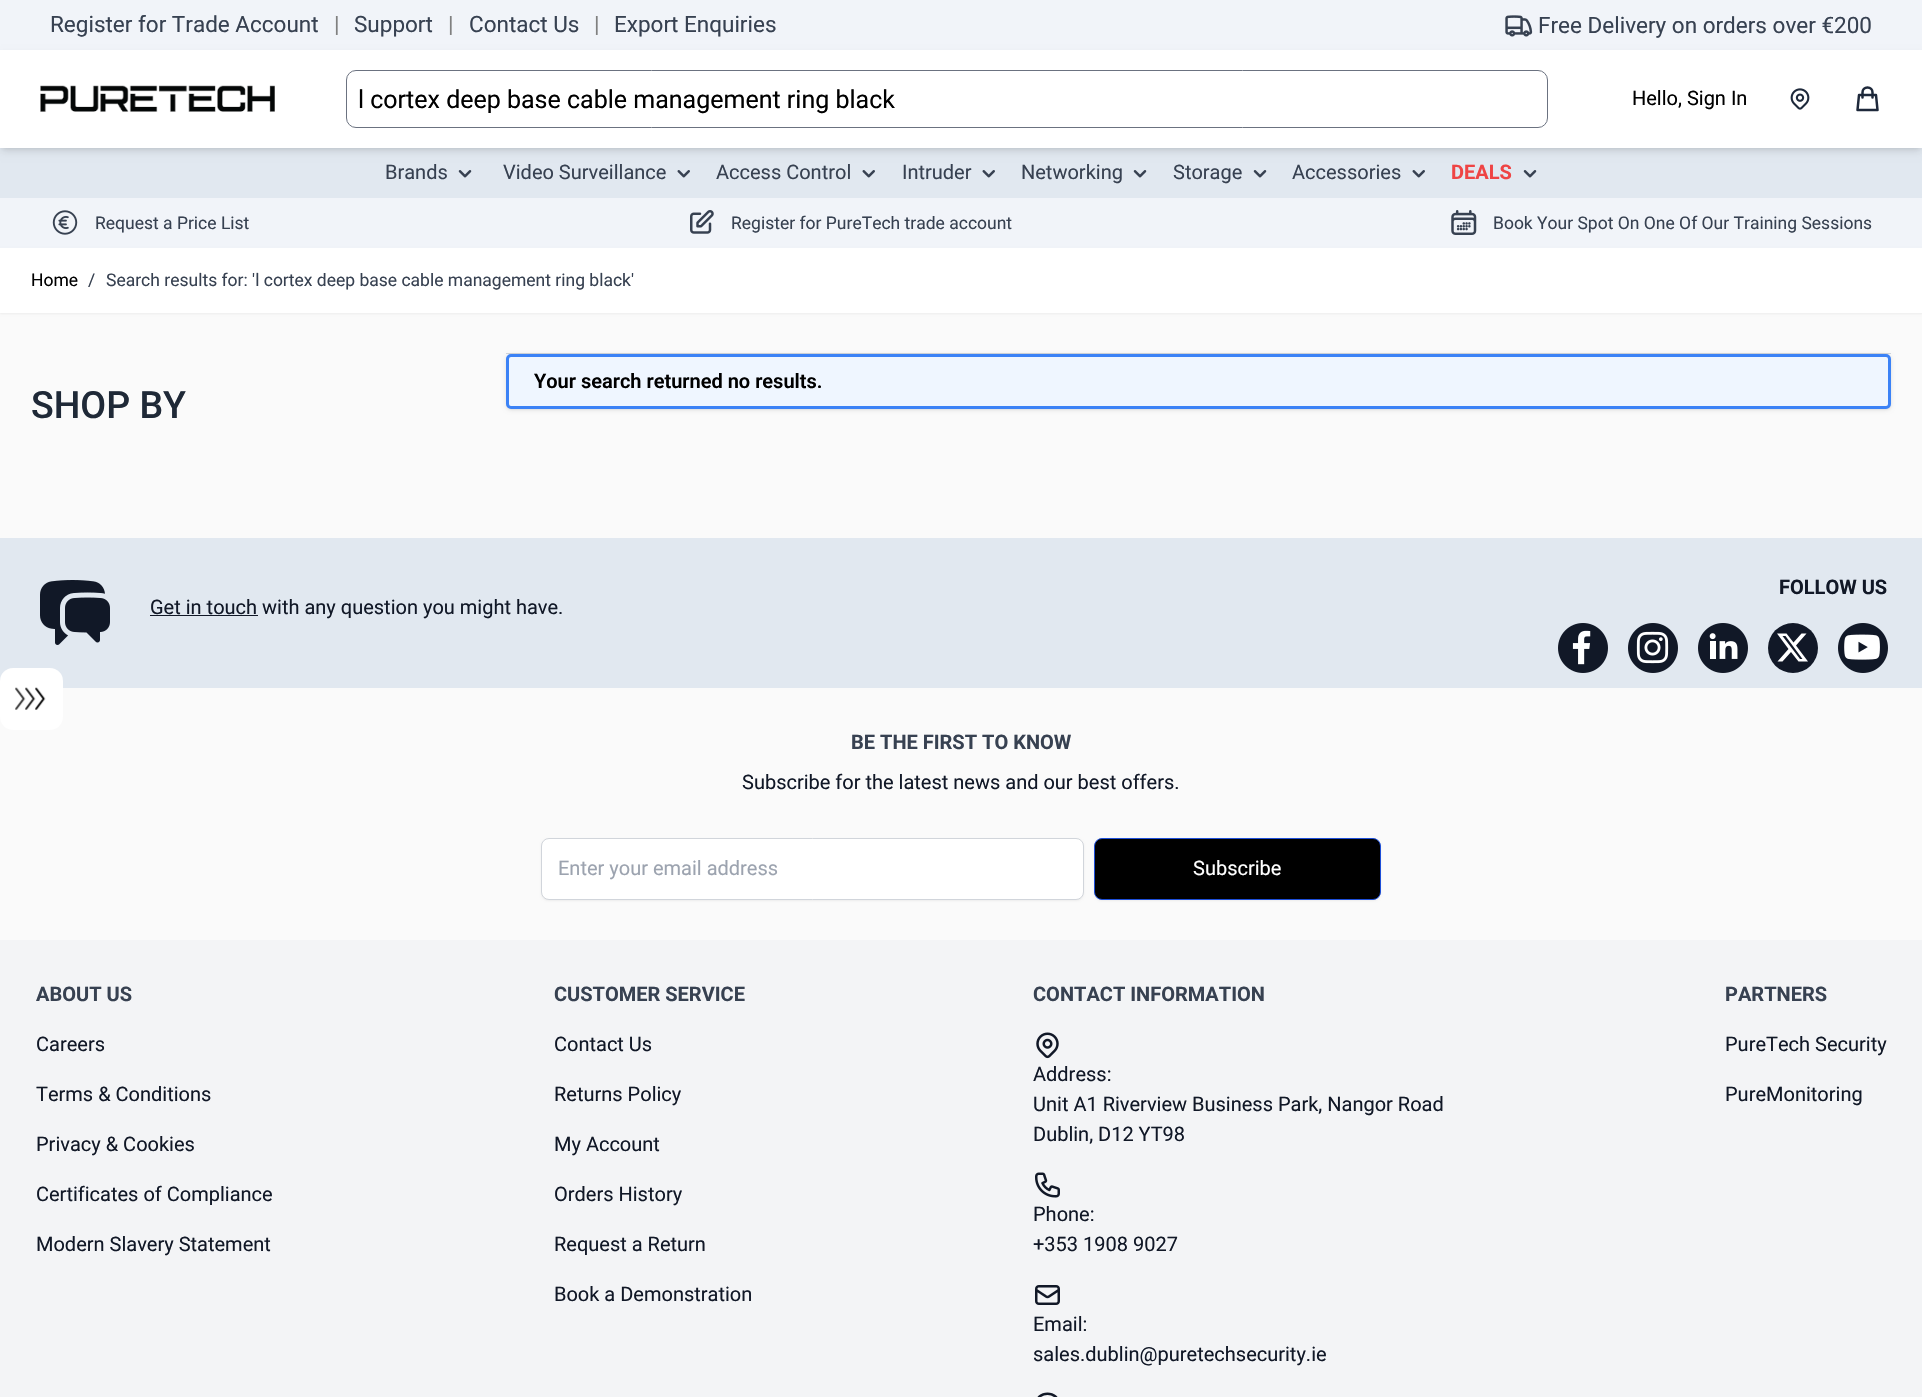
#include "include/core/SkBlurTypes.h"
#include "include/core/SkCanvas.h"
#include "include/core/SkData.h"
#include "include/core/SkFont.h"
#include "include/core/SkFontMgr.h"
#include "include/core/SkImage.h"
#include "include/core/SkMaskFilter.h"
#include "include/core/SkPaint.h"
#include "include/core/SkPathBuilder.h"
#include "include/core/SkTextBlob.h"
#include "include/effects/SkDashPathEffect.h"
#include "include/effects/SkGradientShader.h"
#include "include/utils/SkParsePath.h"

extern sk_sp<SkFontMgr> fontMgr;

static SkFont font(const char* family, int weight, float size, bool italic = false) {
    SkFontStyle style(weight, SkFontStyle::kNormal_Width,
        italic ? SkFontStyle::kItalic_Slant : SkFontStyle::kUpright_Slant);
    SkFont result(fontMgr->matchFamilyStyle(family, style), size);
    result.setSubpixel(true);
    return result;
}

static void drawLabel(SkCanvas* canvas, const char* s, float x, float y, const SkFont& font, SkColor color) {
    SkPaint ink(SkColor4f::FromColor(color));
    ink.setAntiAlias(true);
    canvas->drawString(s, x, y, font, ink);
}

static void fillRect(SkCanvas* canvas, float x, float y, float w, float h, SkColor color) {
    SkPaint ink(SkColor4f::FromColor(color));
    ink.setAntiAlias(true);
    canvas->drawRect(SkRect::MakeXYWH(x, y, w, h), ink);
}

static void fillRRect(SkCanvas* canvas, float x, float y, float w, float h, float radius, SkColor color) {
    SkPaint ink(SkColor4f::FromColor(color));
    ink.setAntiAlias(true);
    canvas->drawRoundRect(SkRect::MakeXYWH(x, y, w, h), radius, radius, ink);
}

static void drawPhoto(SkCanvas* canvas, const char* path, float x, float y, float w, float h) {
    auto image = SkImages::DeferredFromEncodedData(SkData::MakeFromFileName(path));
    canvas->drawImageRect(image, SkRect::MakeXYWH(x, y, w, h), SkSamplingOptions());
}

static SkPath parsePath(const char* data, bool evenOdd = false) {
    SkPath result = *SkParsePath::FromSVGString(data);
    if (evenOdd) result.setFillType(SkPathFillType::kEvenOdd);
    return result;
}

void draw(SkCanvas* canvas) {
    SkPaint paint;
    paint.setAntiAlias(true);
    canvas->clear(0xFFFAFAFA);
    fillRect(canvas, 0, 0, 1922, 50, 0xFFF1F4F9);
    SkFont font1 = font("Roboto", 400, 22.5f);
    drawLabel(canvas, "Register for Trade Account", 50, 32, font1, 0xFF374151);
    drawLabel(canvas, "|", 334, 32, font1, 0xFF808080);
    drawLabel(canvas, "Support", 354, 32, font1, 0xFF374151);
    drawLabel(canvas, "|", 448, 32, font1, 0xFF808080);
    drawLabel(canvas, "Contact Us", 469, 32, font1, 0xFF374151);
    drawLabel(canvas, "|", 594, 32, font1, 0xFF808080);
    drawLabel(canvas, "Export Enquiries", 614, 32, font1, 0xFF374151);
    drawPhoto(canvas, "assets/img1.png", 1505, 15, 28, 22);
    drawLabel(canvas, "Free Delivery on orders over €200", 1538, 33, font1, 0xFF374151);
    fillRect(canvas, 0, 148, 1922, 50, 0xFFE1E8F0);
    paint.setColor(0x1A000000);
    paint.setMaskFilter(SkMaskFilter::MakeBlur(kNormal_SkBlurStyle, 2.5f));
    canvas->drawRect(SkRect::MakeXYWH(3, 55, 1917, 93), paint);
    paint.setMaskFilter(nullptr);
    paint.setMaskFilter(SkMaskFilter::MakeBlur(kNormal_SkBlurStyle, 4));
    canvas->drawRect(SkRect::MakeXYWH(1, 56, 1920, 95), paint);
    paint.setMaskFilter(nullptr);
    fillRect(canvas, 0, 50, 1922, 98, 0xFFFFFFFF);
    drawPhoto(canvas, "assets/img2.png", 40, 85, 235, 27);
    paint.setStroke(true);
    paint.setStrokeWidth(1);
    paint.setColor(0xFF6B7280);
    canvas->drawRoundRect(SkRect::MakeXYWH(346.5f, 70.5f, 1201, 57), 9.5f, 9.5f, paint);
    SkFont font2 = font("Roboto", 400, 25);
    drawLabel(canvas, "l cortex deep base cable management ring black", 358, 108, font2, 0xFF000000);
    SkFont font3 = font("Roboto", 400, 20);
    drawLabel(canvas, "Hello, Sign In", 1632, 105, font3, 0xFF000000);
    drawPhoto(canvas, "assets/img3.png", 1790, 88, 20, 22);
    paint.setStrokeWidth(2.5f);
    paint.setStrokeCap(SkPaint::kRound_Cap);
    paint.setStrokeJoin(SkPaint::kRound_Join);
    paint.setColor(0xFF1E293B);
    canvas->drawPath(parsePath("M1872.5 97.5V92.5C1872.5 89.5 1870.5 87.5 1867.5 87.5C1864.5 87.5 1862.5 89.5 1862.5 92.5V97.5M1859 95H1876L1877.5 110H1857.5Z"), paint);
    drawLabel(canvas, "Brands", 385, 179, font3, 0xFF374151);
    drawPhoto(canvas, "assets/img4.png", 458, 170, 14, 8);
    drawLabel(canvas, "Video Surveillance", 503, 179, font3, 0xFF374151);
    drawPhoto(canvas, "assets/img5.png", 677, 170, 13, 8);
    drawLabel(canvas, "Access Control", 716, 179, font3, 0xFF374151);
    drawPhoto(canvas, "assets/img5.png", 862, 170, 13, 8);
    drawLabel(canvas, "Intruder", 902, 179, font3, 0xFF374151);
    drawPhoto(canvas, "assets/img5.png", 982, 170, 13, 8);
    drawLabel(canvas, "Networking", 1021, 179, font3, 0xFF374151);
    drawPhoto(canvas, "assets/img4.png", 1133, 170, 14, 8);
    drawLabel(canvas, "Storage", 1173, 179, font3, 0xFF374151);
    drawPhoto(canvas, "assets/img4.png", 1253, 170, 14, 8);
    drawLabel(canvas, "Accessories", 1292, 179, font3, 0xFF374151);
    drawPhoto(canvas, "assets/img5.png", 1412, 170, 13, 8);
    SkFont font4 = font("Roboto", 700, 20);
    drawLabel(canvas, "DEALS", 1451, 179, font4, 0xFFEF4444);
    drawPhoto(canvas, "assets/img4.png", 1523, 170, 14, 8);
    fillRect(canvas, 0, 198, 1922, 50, 0xFFF1F4F9);
    drawPhoto(canvas, "assets/img6.png", 52, 210, 26, 25);
    SkFont font5 = font("Roboto", 400, 17.5f);
    drawLabel(canvas, "Request a Price List", 95, 229, font5, 0xFF374151);
    drawPhoto(canvas, "assets/img7.png", 690, 210, 24, 24);
    drawLabel(canvas, "Register for PureTech trade account", 731, 229, font5, 0xFF374151);
    drawPhoto(canvas, "assets/img8.png", 1451, 210, 26, 25);
    drawLabel(canvas, "Book Your Spot On One Of Our Training Sessions", 1493, 229, font5, 0xFF374151);
    paint.setStroke(false);
    paint.setColor(0x0D000000);
    paint.setMaskFilter(SkMaskFilter::MakeBlur(kNormal_SkBlurStyle, 1));
    canvas->drawRect(SkRect::MakeXYWH(0, 249, 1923, 65), paint);
    paint.setMaskFilter(nullptr);
    fillRect(canvas, 0, 248, 1922, 65, 0xFFFFFFFF);
    drawLabel(canvas, "Home", 31, 286, font5, 0xFF000000);
    drawLabel(canvas, "/", 88, 286, font5, 0xFF374151);
    drawLabel(canvas, "Search results for: 'l cortex deep base cable management ring black'", 106, 286, font5, 0xFF374151);
    fillRect(canvas, 506, 353, 1385, 1, 0xFFD1D5DB);
    paint.setColor(0x1A000000);
    paint.setMaskFilter(SkMaskFilter::MakeBlur(kNormal_SkBlurStyle, 1));
    canvas->drawRoundRect(SkRect::MakeXYWH(508, 356, 1382, 53), 4, 4, paint);
    paint.setMaskFilter(nullptr);
    paint.setMaskFilter(SkMaskFilter::MakeBlur(kNormal_SkBlurStyle, 2));
    canvas->drawRoundRect(SkRect::MakeXYWH(506, 355, 1385, 55), 5, 5, paint);
    paint.setMaskFilter(nullptr);
    paint.setColor(0xFFEFF6FF);
    canvas->drawRoundRect(SkRect::MakeXYWH(507.5f, 355.5f, 1382, 52), 3.5f, 3.5f, paint);
    paint.setStroke(true);
    paint.setStrokeWidth(3);
    paint.setStrokeCap(SkPaint::kButt_Cap);
    paint.setStrokeJoin(SkPaint::kMiter_Join);
    paint.setColor(0xFF3B82F6);
    canvas->drawRoundRect(SkRect::MakeXYWH(507.5f, 355.5f, 1382, 52), 3.5f, 3.5f, paint);
    SkFont font6 = font("Roboto", 600, 20);
    drawLabel(canvas, "Your search returned no results.", 534, 388, font6, 0xFF000000);
    SkFont font7 = font("Roboto", 500, 37.5f);
    drawLabel(canvas, "SHOP BY", 31, 418, font7, 0xFF1F2937);
    fillRect(canvas, 0, 538, 1922, 150, 0xFFE1E8F0);
    fillRRect(canvas, 0, 668, 63, 62, 13, 0xFFFFFFFF);
    drawPhoto(canvas, "assets/img9.png", 15, 687, 31, 23);
    drawLabel(canvas, "FOLLOW US", 1779, 594, font4, 0xFF111827);
    drawPhoto(canvas, "assets/img10.png", 1558, 623, 50, 50);
    drawPhoto(canvas, "assets/img11.png", 1628, 623, 50, 50);
    drawPhoto(canvas, "assets/img12.png", 1698, 623, 50, 50);
    paint.setStroke(false);
    paint.setColor(0xFF111827);
    canvas->drawCircle(1793, 648, 25, paint);
    paint.setColor(0xFFFFFFFF);
    canvas->drawPath(parsePath("M1801.5 633.5H1806.5L1796 645.5L1808 661.5H1798.5L1791 652L1782.5 661.5H1777.5L1788.5 649L1777 633.5H1786.5L1793.5 642.5ZM1800 659H1802.5L1785.5 636H1782.5Z"), paint);
    drawPhoto(canvas, "assets/img13.png", 1838, 623, 50, 50);
    drawPhoto(canvas, "assets/img14.png", 40, 580, 70, 65);
    fillRect(canvas, 150, 615, 108, 1, 0xFF111827);
    drawLabel(canvas, "Get in touch with any question you might have.", 150, 614, font3, 0xFF111827);
    drawLabel(canvas, "BE THE FIRST TO KNOW", 851, 749, font4, 0xFF374151);
    drawLabel(canvas, "Subscribe for the latest news and our best offers.", 742, 789, font3, 0xFF111827);
    paint.setColor(0x0D000000);
    paint.setMaskFilter(SkMaskFilter::MakeBlur(kNormal_SkBlurStyle, 1));
    canvas->drawRoundRect(SkRect::MakeXYWH(541, 839, 543, 62), 8, 8, paint);
    paint.setMaskFilter(nullptr);
    paint.setColor(0xFFFFFFFF);
    canvas->drawRoundRect(SkRect::MakeXYWH(541.5f, 838.5f, 542, 61), 7.5f, 7.5f, paint);
    paint.setStroke(true);
    paint.setStrokeWidth(1);
    paint.setColor(0xFFD1D5DB);
    canvas->drawRoundRect(SkRect::MakeXYWH(541.5f, 838.5f, 542, 61), 7.5f, 7.5f, paint);
    drawLabel(canvas, "Enter your email address", 558, 875, font3, 0xFF9CA3AF);
    paint.setStroke(false);
    paint.setColor(0x0D000000);
    paint.setMaskFilter(SkMaskFilter::MakeBlur(kNormal_SkBlurStyle, 1));
    canvas->drawRoundRect(SkRect::MakeXYWH(1094, 839, 287, 62), 8, 8, paint);
    paint.setMaskFilter(nullptr);
    paint.setColor(0xFF000000);
    canvas->drawRoundRect(SkRect::MakeXYWH(1094.5f, 838.5f, 286, 61), 7.5f, 7.5f, paint);
    paint.setStroke(true);
    paint.setColor(0xFF1D4ED8);
    canvas->drawRoundRect(SkRect::MakeXYWH(1094.5f, 838.5f, 286, 61), 7.5f, 7.5f, paint);
    drawLabel(canvas, "Subscribe", 1193, 875, font3, 0xFFFFFFFF);
    fillRect(canvas, 0, 940, 1922, 457, 0xFFF3F4F6);
    drawLabel(canvas, "ABOUT US", 36, 1001, font4, 0xFF374151);
    drawLabel(canvas, "Careers", 36, 1051, font3, 0xFF111827);
    drawLabel(canvas, "Terms & Conditions", 36, 1101, font3, 0xFF111827);
    drawLabel(canvas, "Privacy & Cookies", 36, 1151, font3, 0xFF111827);
    drawLabel(canvas, "Certificates of Compliance", 36, 1201, font3, 0xFF111827);
    drawLabel(canvas, "Modern Slavery Statement", 36, 1251, font3, 0xFF111827);
    drawLabel(canvas, "CUSTOMER SERVICE", 554, 1001, font4, 0xFF374151);
    drawLabel(canvas, "Contact Us", 554, 1051, font3, 0xFF111827);
    drawLabel(canvas, "Returns Policy", 554, 1101, font3, 0xFF111827);
    drawLabel(canvas, "My Account", 554, 1151, font3, 0xFF111827);
    drawLabel(canvas, "Orders History", 554, 1201, font3, 0xFF111827);
    drawLabel(canvas, "Request a Return", 554, 1251, font3, 0xFF111827);
    drawLabel(canvas, "Book a Demonstration", 554, 1301, font3, 0xFF111827);
    drawLabel(canvas, "CONTACT INFORMATION", 1033, 1001, font4, 0xFF374151);
    drawPhoto(canvas, "assets/img15.png", 1036, 1032, 23, 27);
    drawLabel(canvas, "Address:", 1033, 1081, font3, 0xFF111827);
    drawLabel(canvas, "Unit A1 Riverview Business Park, Nangor Road", 1033, 1111, font3, 0xFF111827);
    drawLabel(canvas, "Dublin, D12 YT98", 1033, 1141, font3, 0xFF111827);
    drawPhoto(canvas, "assets/img16.png", 1035, 1172, 25, 26);
    drawLabel(canvas, "Phone:", 1033, 1221, font3, 0xFF111827);
    drawLabel(canvas, "+353 1908 9027", 1033, 1251, font3, 0xFF111827);
    drawPhoto(canvas, "assets/img17.png", 1035, 1285, 25, 20);
    drawLabel(canvas, "Email:", 1033, 1331, font3, 0xFF111827);
    drawLabel(canvas, "sales.dublin@puretechsecurity.ie", 1033, 1361, font3, 0xFF111827);
    paint.setStrokeWidth(2.5f);
    paint.setStrokeCap(SkPaint::kRound_Cap);
    paint.setStrokeJoin(SkPaint::kRound_Join);
    paint.setColor(0xFF111827);
    canvas->drawPath(parsePath("M1047.5 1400V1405L1051 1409M1059 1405C1059 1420 1036 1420 1036 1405C1036 1390 1059 1390 1059 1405Z"), paint);
    drawLabel(canvas, "PARTNERS", 1725, 1001, font4, 0xFF374151);
    drawLabel(canvas, "PureTech Security", 1725, 1051, font3, 0xFF111827);
    drawLabel(canvas, "PureMonitoring", 1725, 1101, font3, 0xFF111827);
}
